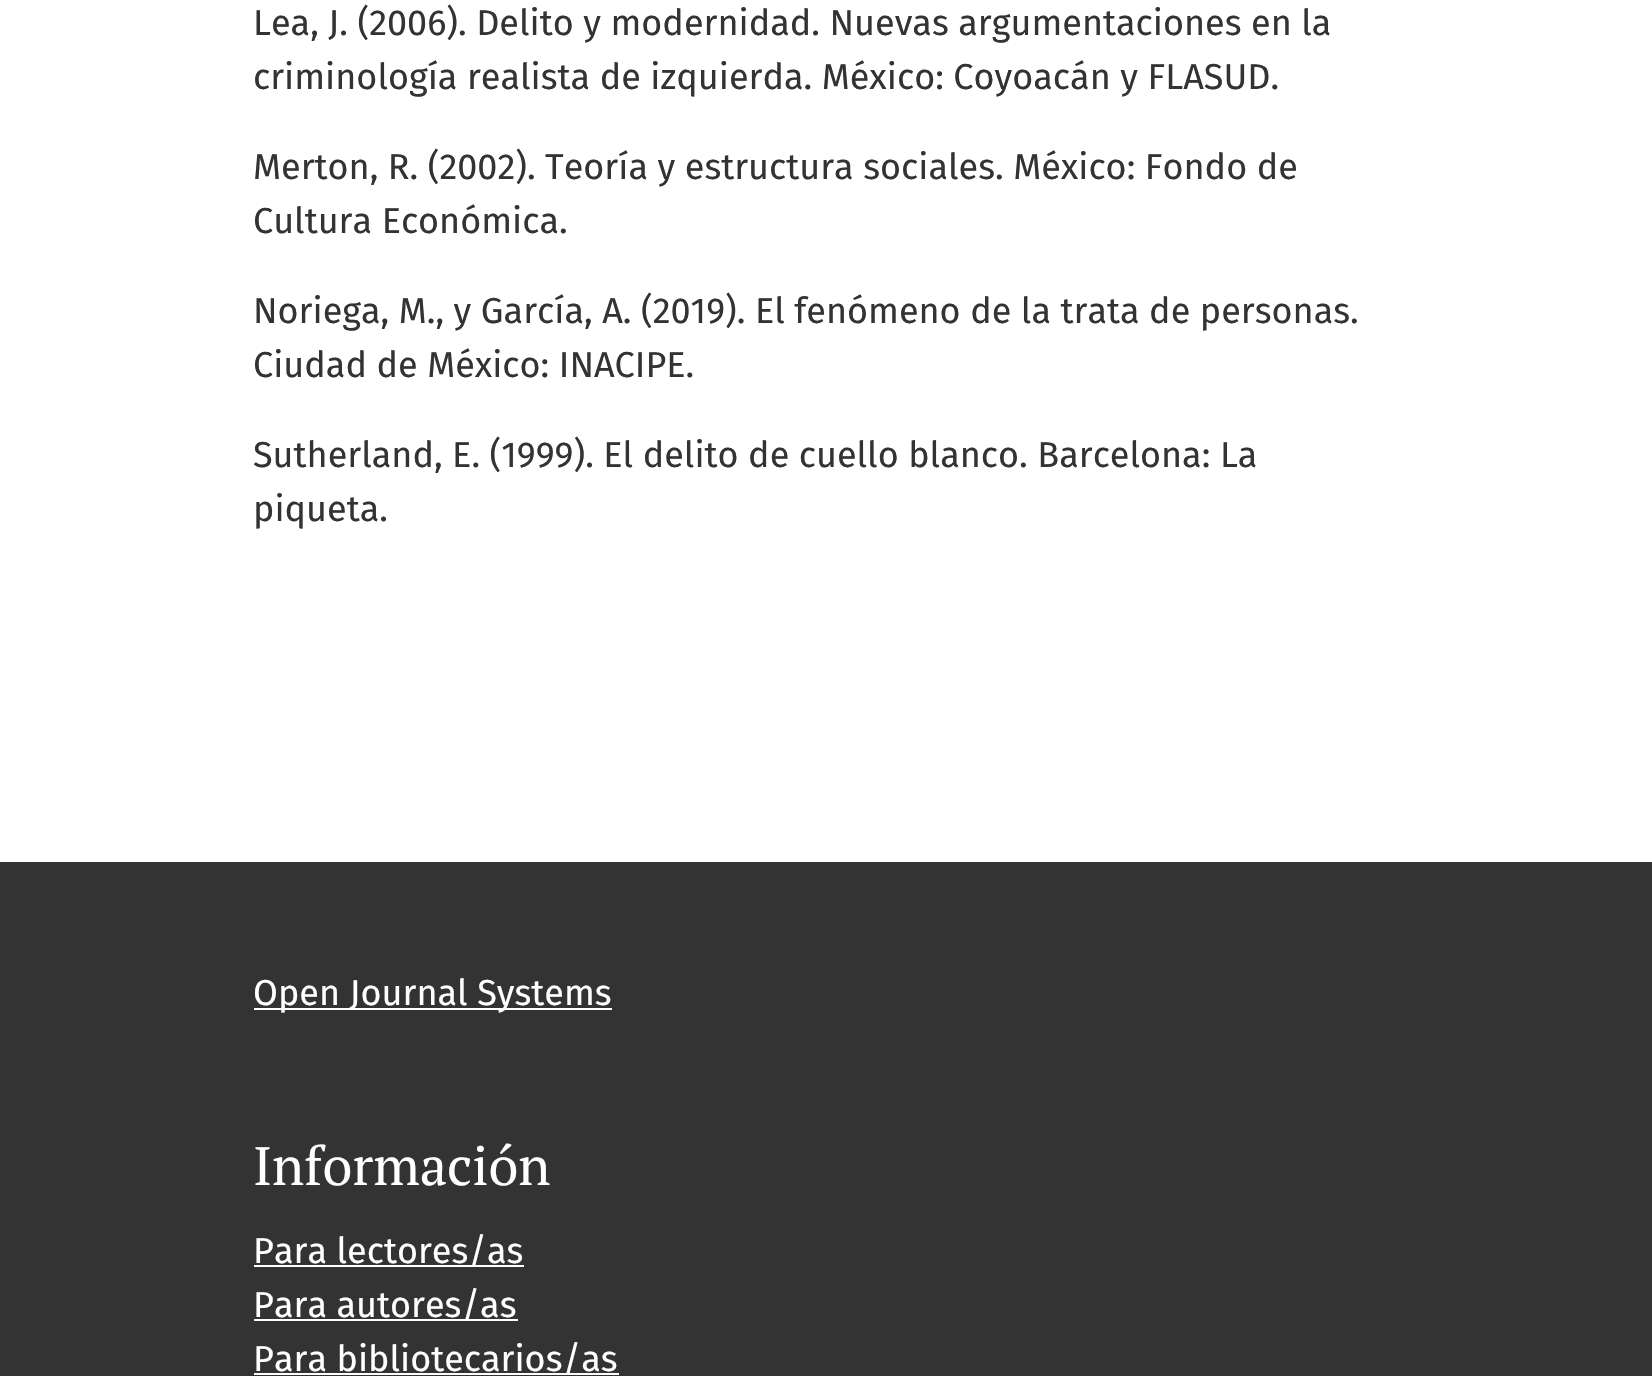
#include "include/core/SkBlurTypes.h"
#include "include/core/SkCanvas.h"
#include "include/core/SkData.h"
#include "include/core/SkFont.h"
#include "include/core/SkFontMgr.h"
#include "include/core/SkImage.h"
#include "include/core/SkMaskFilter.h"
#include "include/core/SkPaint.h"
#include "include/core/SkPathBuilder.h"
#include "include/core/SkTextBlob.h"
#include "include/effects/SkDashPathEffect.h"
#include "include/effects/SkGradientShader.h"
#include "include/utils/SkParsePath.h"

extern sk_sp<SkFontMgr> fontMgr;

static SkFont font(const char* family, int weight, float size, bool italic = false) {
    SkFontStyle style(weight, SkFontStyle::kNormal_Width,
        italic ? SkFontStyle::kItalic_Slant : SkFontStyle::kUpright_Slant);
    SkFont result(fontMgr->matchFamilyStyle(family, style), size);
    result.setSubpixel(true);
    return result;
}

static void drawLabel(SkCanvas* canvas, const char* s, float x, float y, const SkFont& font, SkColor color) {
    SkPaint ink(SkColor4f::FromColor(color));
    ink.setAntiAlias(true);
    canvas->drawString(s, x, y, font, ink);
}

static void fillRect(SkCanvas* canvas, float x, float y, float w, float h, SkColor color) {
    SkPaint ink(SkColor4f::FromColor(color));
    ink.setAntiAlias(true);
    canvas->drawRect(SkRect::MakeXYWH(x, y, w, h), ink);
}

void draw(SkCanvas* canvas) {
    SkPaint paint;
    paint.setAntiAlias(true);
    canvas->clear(0xFFFFFFFF);
    SkFont font1 = font("Fira Sans", 400, 36);
    drawLabel(canvas, "Lea, J. (2006). Delito y modernidad. Nuevas argumentaciones en la", 253, 35, font1, 0xFF333333);
    drawLabel(canvas, "criminología realista de izquierda. México: Coyoacán y FLASUD.", 253, 89, font1, 0xFF333333);
    drawLabel(canvas, "Merton, R. (2002). Teoría y estructura sociales. México: Fondo de", 253, 179, font1, 0xFF333333);
    drawLabel(canvas, "Cultura Económica.", 253, 233, font1, 0xFF333333);
    drawLabel(canvas, "Noriega, M., y García, A. (2019). El fenómeno de la trata de personas.", 253, 323, font1, 0xFF333333);
    drawLabel(canvas, "Ciudad de México: INACIPE.", 253, 377, font1, 0xFF333333);
    drawLabel(canvas, "Sutherland, E. (1999). El delito de cuello blanco. Barcelona: La", 253, 467, font1, 0xFF333333);
    drawLabel(canvas, "piqueta.", 253, 521, font1, 0xFF333333);
    fillRect(canvas, 0, 862, 1652, 514, 0xFF333333);
    fillRect(canvas, 254, 1008, 358, 2, 0xFFFFFFFF);
    drawLabel(canvas, "Open Journal Systems", 253, 1005, font1, 0xFFFFFFFF);
    SkFont font2 = font("PT Serif", 400, 54);
    drawLabel(canvas, "Información", 253, 1185, font2, 0xFFFFFFFF);
    fillRect(canvas, 254, 1265, 270, 2, 0xFFFFFFFF);
    drawLabel(canvas, "Para lectores/as", 253, 1263, font1, 0xFFFFFFFF);
    fillRect(canvas, 254, 1319, 264, 2, 0xFFFFFFFF);
    drawLabel(canvas, "Para autores/as", 253, 1317, font1, 0xFFFFFFFF);
    fillRect(canvas, 254, 1373, 365, 2, 0xFFFFFFFF);
    drawLabel(canvas, "Para bibliotecarios/as", 253, 1371, font1, 0xFFFFFFFF);
}
